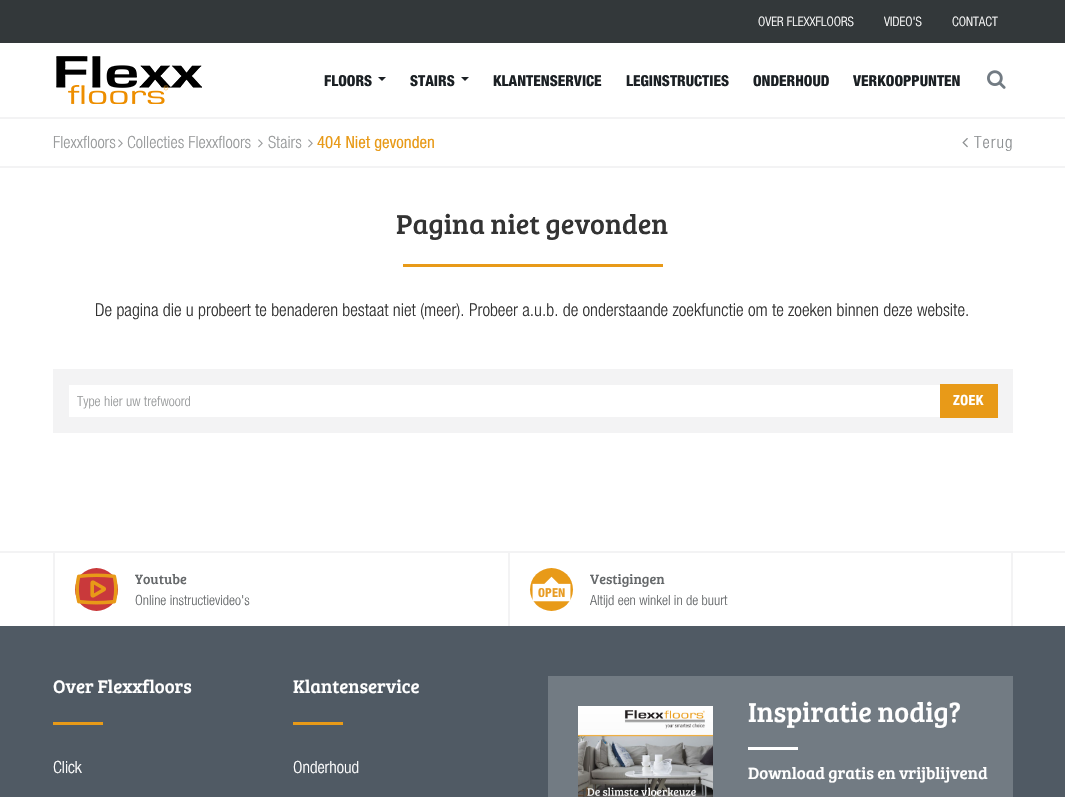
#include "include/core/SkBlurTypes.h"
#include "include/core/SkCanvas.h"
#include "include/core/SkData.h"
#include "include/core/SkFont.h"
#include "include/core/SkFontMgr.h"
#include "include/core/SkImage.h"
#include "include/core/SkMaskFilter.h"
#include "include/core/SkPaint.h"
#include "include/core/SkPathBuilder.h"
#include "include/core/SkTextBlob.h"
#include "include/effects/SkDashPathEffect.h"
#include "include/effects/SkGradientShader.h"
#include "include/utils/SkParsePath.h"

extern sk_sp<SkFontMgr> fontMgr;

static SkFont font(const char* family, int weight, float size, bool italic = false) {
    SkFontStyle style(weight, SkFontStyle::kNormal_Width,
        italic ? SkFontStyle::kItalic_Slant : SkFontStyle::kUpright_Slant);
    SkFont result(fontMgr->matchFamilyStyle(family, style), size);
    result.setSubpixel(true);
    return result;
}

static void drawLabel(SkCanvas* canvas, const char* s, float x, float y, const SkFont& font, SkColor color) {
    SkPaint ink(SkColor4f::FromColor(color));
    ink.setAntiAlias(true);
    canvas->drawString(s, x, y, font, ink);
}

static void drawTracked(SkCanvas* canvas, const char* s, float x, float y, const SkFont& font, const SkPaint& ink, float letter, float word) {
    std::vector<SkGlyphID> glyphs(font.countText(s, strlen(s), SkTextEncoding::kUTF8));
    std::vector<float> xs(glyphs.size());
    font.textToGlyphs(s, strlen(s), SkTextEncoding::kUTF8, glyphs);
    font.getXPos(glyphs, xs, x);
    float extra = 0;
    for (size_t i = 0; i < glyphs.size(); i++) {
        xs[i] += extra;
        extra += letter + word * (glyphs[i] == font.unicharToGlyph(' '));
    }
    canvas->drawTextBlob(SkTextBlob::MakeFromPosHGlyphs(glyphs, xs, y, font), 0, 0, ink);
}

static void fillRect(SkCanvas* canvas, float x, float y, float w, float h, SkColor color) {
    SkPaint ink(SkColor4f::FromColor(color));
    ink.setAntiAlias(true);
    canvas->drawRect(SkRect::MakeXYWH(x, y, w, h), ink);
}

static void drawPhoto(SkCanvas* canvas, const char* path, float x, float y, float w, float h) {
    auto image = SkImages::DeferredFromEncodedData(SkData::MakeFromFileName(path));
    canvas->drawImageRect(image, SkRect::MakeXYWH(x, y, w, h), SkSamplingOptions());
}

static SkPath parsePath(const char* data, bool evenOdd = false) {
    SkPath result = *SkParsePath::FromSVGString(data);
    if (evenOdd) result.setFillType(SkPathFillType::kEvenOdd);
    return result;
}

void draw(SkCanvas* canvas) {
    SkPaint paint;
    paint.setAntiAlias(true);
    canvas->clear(0xFFFFFFFF);
    fillRect(canvas, 0, 0, 1065, 43, 0xFF33383A);
    SkFont font1 = font("Helvetica Neue", 300, 13);
    drawLabel(canvas, "OVER FLEXXFLOORS", 758, 26, font1, 0xFFFFFFFF);
    drawLabel(canvas, "VIDEO'S", 884, 26, font1, 0xFFFFFFFF);
    drawLabel(canvas, "CONTACT", 952, 26, font1, 0xFFFFFFFF);
    drawPhoto(canvas, "assets/img1.png", 56, 56, 146, 48);
    SkFont font2 = font("Helvetica Neue", 900, 15);
    drawLabel(canvas, "FLOORS", 324, 86, font2, 0xFF1B2024);
    paint.setColor(0xFF1B2024);
    canvas->drawPath(parsePath("M378 77H386L382 81Z"), paint);
    drawLabel(canvas, "STAIRS", 410, 86, font2, 0xFF1B2024);
    canvas->drawPath(parsePath("M461 77H469L465 81Z"), paint);
    drawLabel(canvas, "KLANTENSERVICE", 493, 86, font2, 0xFF1B2024);
    drawLabel(canvas, "LEGINSTRUCTIES", 626, 86, font2, 0xFF1B2024);
    drawLabel(canvas, "ONDERHOUD", 753, 86, font2, 0xFF1B2024);
    drawLabel(canvas, "VERKOOPPUNTEN", 853, 86, font2, 0xFF1B2024);
    drawPhoto(canvas, "assets/img2.png", 987, 70, 19, 19);
    fillRect(canvas, 0, 117, 1065, 2, 0xFFF3F3F4);
    fillRect(canvas, 0, 166, 1065, 2, 0xFFF3F3F4);
    SkFont font3 = font("Helvetica Neue", 300, 16.9f);
    drawLabel(canvas, "Flexxfloors", 53, 148, font3, 0xFF999B9C);
    drawPhoto(canvas, "assets/img3.png", 118, 139, 5, 9);
    drawLabel(canvas, "Collecties Flexxfloors", 127, 148, font3, 0xFF999B9C);
    drawPhoto(canvas, "assets/img3.png", 258, 139, 5, 9);
    drawLabel(canvas, "Stairs", 268, 148, font3, 0xFF999B9C);
    drawPhoto(canvas, "assets/img3.png", 308, 139, 5, 9);
    SkFont font4 = font("Helvetica Neue", 500, 16.9f);
    drawLabel(canvas, "404 Niet gevonden", 317, 148, font4, 0xFFE89A18);
    drawPhoto(canvas, "assets/img4.png", 962, 138, 6, 10);
    paint.setColor(0xFF8D9092);
    drawTracked(canvas, "Terug", 974, 148, font3, paint, 1, 0);
    SkFont font5 = font("Bree Serif", 400, 28.1f);
    drawLabel(canvas, "Pagina niet gevonden", 396, 234, font5, 0xFF333333);
    fillRect(canvas, 403, 264, 260, 3, 0xFFE89A18);
    SkFont font6 = font("Helvetica Neue", 300, 17.8f);
    drawLabel(canvas, "De pagina die u probeert te benaderen bestaat niet (meer). Probeer a.u.b. de onderstaande zoekfunctie om te zoeken binnen deze website.", 95, 316, font6, 0xFF333333);
    fillRect(canvas, 53, 369, 960, 64, 0xFFF3F3F4);
    fillRect(canvas, 69, 385, 871, 32, 0xFFFFFFFF);
    SkFont font7 = font("Helvetica Neue", 300, 14);
    drawLabel(canvas, "Type hier uw trefwoord", 77, 406, font7, 0xFF999B9C);
    fillRect(canvas, 940, 384, 58, 34, 0xFFE89A18);
    SkFont font8 = font("Helvetica Neue", 700, 14);
    paint.setColor(0xFFFFFFFF);
    drawTracked(canvas, "ZOEK", 953, 405, font8, paint, 0.5f, 0);
    fillRect(canvas, 0, 626, 1065, 171, 0xFF505A64);
    fillRect(canvas, 0, 551, 1065, 2, 0xFFF3F3F4);
    fillRect(canvas, 53, 553, 2, 73, 0xFFF3F3F4);
    fillRect(canvas, 508, 553, 2, 73, 0xFFF3F3F4);
    paint.setColor(0xFFC9393B);
    canvas->drawCircle(96.5f, 589.5f, 21.5f, paint);
    drawPhoto(canvas, "assets/img5.png", 75, 573, 43, 32);
    SkFont font9 = font("Bree Serif", 400, 14);
    drawLabel(canvas, "Youtube", 135, 584, font9, 0xFF66696B);
    drawLabel(canvas, "Online instructievideo's", 135, 605, font7, 0xFF66696B);
    fillRect(canvas, 1011, 553, 2, 73, 0xFFF3F3F4);
    paint.setColor(0xFFE89A18);
    canvas->drawCircle(551.5f, 589.5f, 21.5f, paint);
    drawPhoto(canvas, "assets/img6.png", 532, 576, 39, 26);
    drawLabel(canvas, "Vestigingen", 590, 584, font9, 0xFF66696B);
    drawLabel(canvas, "Altijd een winkel in de buurt", 590, 605, font7, 0xFF66696B);
    SkFont font10 = font("Bree Serif", 400, 18.75f);
    drawLabel(canvas, "Over Flexxfloors", 53, 693, font10, 0xFFFFFFFF);
    fillRect(canvas, 53, 722, 50, 3, 0xFFE89A18);
    drawLabel(canvas, "Click", 53, 773, font3, 0xFFFFFFFF);
    drawLabel(canvas, "Klantenservice", 293, 693, font10, 0xFFFFFFFF);
    fillRect(canvas, 293, 722, 50, 3, 0xFFE89A18);
    drawLabel(canvas, "Onderhoud", 293, 773, font3, 0xFFFFFFFF);
    fillRect(canvas, 548, 676, 465, 121, 0xFF727B83);
    drawPhoto(canvas, "assets/img7.png", 578, 706, 135, 91);
    drawLabel(canvas, "Inspiratie nodig?", 748, 722, font5, 0xFFFFFFFF);
    fillRect(canvas, 748, 747, 50, 3, 0xFFFFFFFF);
    SkFont font11 = font("Bree Serif", 400, 16.9f);
    drawLabel(canvas, "Download gratis en vrijblijvend", 748, 779, font11, 0xFFFFFFFF);
}
